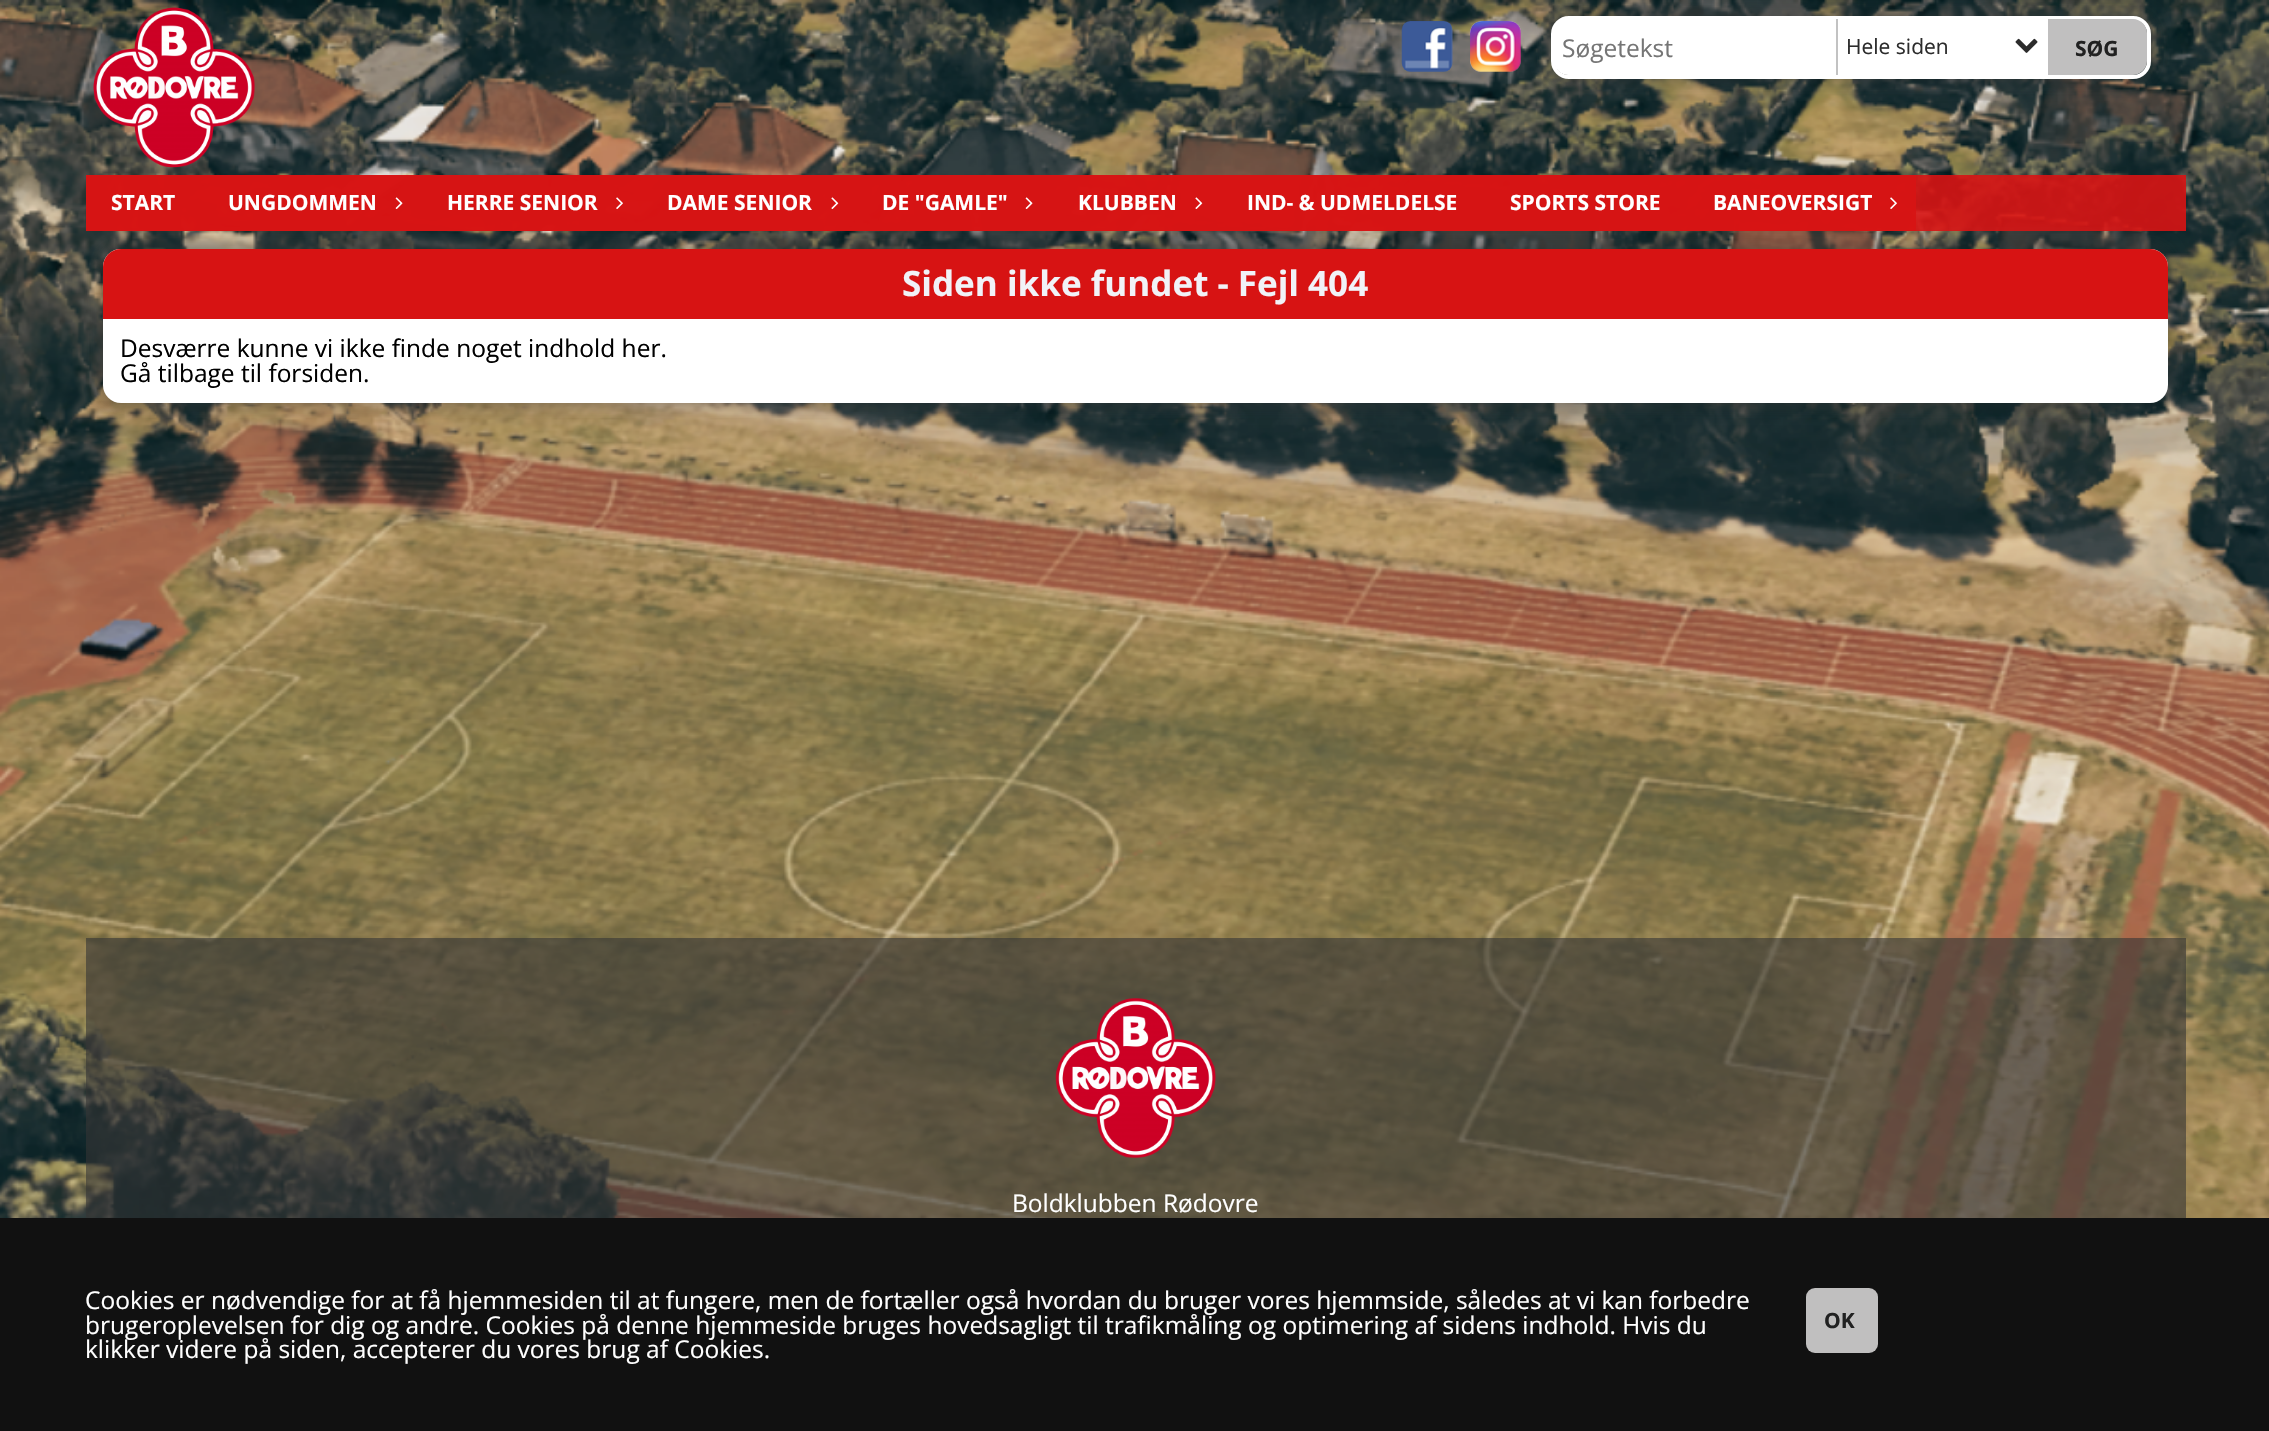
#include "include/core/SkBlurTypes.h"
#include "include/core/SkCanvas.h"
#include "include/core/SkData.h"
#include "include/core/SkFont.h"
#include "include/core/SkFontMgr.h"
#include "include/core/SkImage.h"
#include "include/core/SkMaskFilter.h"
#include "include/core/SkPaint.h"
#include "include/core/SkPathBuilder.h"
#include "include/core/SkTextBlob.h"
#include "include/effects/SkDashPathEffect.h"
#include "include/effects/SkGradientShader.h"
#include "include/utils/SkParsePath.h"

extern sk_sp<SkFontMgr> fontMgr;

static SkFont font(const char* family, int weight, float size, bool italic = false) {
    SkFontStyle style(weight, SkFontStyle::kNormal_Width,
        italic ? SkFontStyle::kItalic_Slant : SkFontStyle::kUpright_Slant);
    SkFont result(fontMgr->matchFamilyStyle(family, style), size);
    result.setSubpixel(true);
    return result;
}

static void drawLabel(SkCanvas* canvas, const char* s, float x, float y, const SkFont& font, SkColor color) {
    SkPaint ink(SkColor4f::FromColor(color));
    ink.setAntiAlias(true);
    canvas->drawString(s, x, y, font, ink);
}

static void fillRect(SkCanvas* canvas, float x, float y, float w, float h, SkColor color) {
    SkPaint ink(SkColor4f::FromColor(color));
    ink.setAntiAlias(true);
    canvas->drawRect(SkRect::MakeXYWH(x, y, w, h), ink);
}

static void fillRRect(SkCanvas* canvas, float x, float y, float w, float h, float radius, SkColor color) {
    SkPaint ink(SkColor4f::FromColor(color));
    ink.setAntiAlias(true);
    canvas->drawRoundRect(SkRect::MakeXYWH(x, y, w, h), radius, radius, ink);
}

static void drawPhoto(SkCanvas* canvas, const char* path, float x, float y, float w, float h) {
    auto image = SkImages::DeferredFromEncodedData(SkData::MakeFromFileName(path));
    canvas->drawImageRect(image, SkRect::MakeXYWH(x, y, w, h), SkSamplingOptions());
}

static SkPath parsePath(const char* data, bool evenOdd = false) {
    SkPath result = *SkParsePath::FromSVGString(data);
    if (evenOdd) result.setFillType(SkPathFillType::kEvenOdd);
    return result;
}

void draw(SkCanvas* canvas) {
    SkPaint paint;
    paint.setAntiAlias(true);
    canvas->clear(0xFFFFFFFF);
    drawPhoto(canvas, "assets/img1.png", 0, 0, 2269, 1218);
    drawPhoto(canvas, "assets/img2.png", 93, 7, 162, 161);
    drawPhoto(canvas, "assets/img3.png", 1401, 21, 52, 51);
    drawPhoto(canvas, "assets/img4.png", 1470, 21, 51, 51);
    paint.setColor(0x80303030);
    paint.setMaskFilter(SkMaskFilter::MakeBlur(kNormal_SkBlurStyle, 9));
    canvas->drawRoundRect(SkRect::MakeXYWH(1551, 16, 600, 63), 18, 18, paint);
    paint.setMaskFilter(nullptr);
    paint.setStroke(true);
    paint.setStrokeWidth(4);
    paint.setColor(0xFFFFFFFF);
    canvas->drawRoundRect(SkRect::MakeXYWH(1553, 18, 596, 59), 16, 16, paint);
    paint.setStroke(false);
    canvas->drawPath(parsePath("M1568 19H1843V75H1568C1560.5 75 1554 68.5 1554 61V33C1554 25.5 1560.5 19 1568 19Z"), paint);
    SkFont font1 = font("Open Sans", 400, 24.5f);
    drawLabel(canvas, "Søgetekst", 1562, 57, font1, 0xFF757575);
    fillRect(canvas, 1843, 20, 205, 55, 0xFFFFFFFF);
    fillRect(canvas, 1836, 19, 2, 56, 0xFFC2C2C2);
    SkFont font2 = font("Open Sans", 400, 21);
    drawLabel(canvas, "Hele siden", 1846, 54, font2, 0xFF2C2C2C);
    drawPhoto(canvas, "assets/img5.png", 2015, 38, 23, 15);
    paint.setColor(0xFFC0BFBF);
    canvas->drawPath(parsePath("M2048 19H2133C2140.5 19 2147 25.5 2147 33V61C2147 68.5 2140.5 75 2133 75H2048Z"), paint);
    SkFont font3 = font("Open Sans", 700, 21);
    drawLabel(canvas, "SØG", 2075, 56, font3, 0xFF212121);
    fillRect(canvas, 86, 175, 2100, 56, 0xE6D71313);
    paint.setColor(0x80303030);
    paint.setMaskFilter(SkMaskFilter::MakeBlur(kNormal_SkBlurStyle, 9));
    canvas->drawRoundRect(SkRect::MakeXYWH(103, 249, 2065, 154), 18, 18, paint);
    paint.setMaskFilter(nullptr);
    fillRect(canvas, 86, 175, 115, 56, 0xE6D71313);
    drawLabel(canvas, "START", 111, 210, font3, 0xFFFFFFFF);
    fillRect(canvas, 201, 175, 219, 56, 0xE6D71313);
    drawLabel(canvas, "UNGDOMMEN", 228, 210, font3, 0xFFFFFFFF);
    drawPhoto(canvas, "assets/img6.png", 395, 197, 8, 12);
    fillRect(canvas, 420, 175, 221, 56, 0xE6D71313);
    drawLabel(canvas, "HERRE SENIOR", 447, 210, font3, 0xFFFFFFFF);
    drawPhoto(canvas, "assets/img7.png", 616, 197, 7, 12);
    fillRect(canvas, 641, 175, 215, 56, 0xE6D71313);
    drawLabel(canvas, "DAME SENIOR", 667, 210, font3, 0xFFFFFFFF);
    drawPhoto(canvas, "assets/img8.png", 831, 197, 8, 12);
    fillRect(canvas, 856, 175, 196, 56, 0xE6D71313);
    drawLabel(canvas, "DE \"GAMLE\"", 882, 210, font3, 0xFFFFFFFF);
    drawPhoto(canvas, "assets/img9.png", 1025, 197, 8, 12);
    fillRect(canvas, 1052, 175, 170, 56, 0xE6D71313);
    drawLabel(canvas, "KLUBBEN", 1078, 210, font3, 0xFFFFFFFF);
    drawPhoto(canvas, "assets/img10.png", 1195, 197, 8, 12);
    fillRect(canvas, 1222, 175, 262, 56, 0xE6D71313);
    drawLabel(canvas, "IND- & UDMELDELSE", 1247, 210, font3, 0xFFFFFFFF);
    fillRect(canvas, 1484, 175, 203, 56, 0xE6D71313);
    drawLabel(canvas, "SPORTS STORE", 1510, 210, font3, 0xFFFFFFFF);
    fillRect(canvas, 1687, 175, 229, 56, 0xE6D71313);
    drawLabel(canvas, "BANEOVERSIGT", 1713, 210, font3, 0xFFFFFFFF);
    drawPhoto(canvas, "assets/img11.png", 1890, 197, 7, 12);
    fillRRect(canvas, 103, 249, 2065, 154, 18, 0xFFFFFFFF);
    paint.setColor(0xFFD71313);
    canvas->drawPath(parsePath("M121 249H2150C2160 249 2168 257 2168 267V319H103V267C103 257 111 249 121 249Z"), paint);
    SkFont font4 = font("Open Sans", 700, 35);
    drawLabel(canvas, "Siden ikke fundet - Fejl 404", 902, 296, font4, 0xFFF1F2F7);
    drawLabel(canvas, "Desværre kunne vi ikke finde noget indhold her.", 120, 357, font1, 0xFF000000);
    drawLabel(canvas, "Gå tilbage til forsiden", 120, 382, font1, 0xFF000000);
    drawLabel(canvas, ".", 363, 382, font1, 0xFF000000);
    fillRect(canvas, 86, 938, 2100, 280, 0x99333333);
    drawPhoto(canvas, "assets/img12.png", 1055, 998, 161, 161);
    drawLabel(canvas, "Boldklubben Rødovre", 1012, 1212, font1, 0xFFFFFFFF);
    fillRect(canvas, 0, 1218, 2269, 213, 0xFF111111);
    drawLabel(canvas, "Cookies er nødvendige for at få hjemmesiden til at fungere, men de fortæller også hvordan du bruger vores hjemmside, således at vi kan forbedre", 85, 1309, font1, 0xFFFFFFFF);
    drawLabel(canvas, "brugeroplevelsen for dig og andre. Cookies på denne hjemmeside bruges hovedsagligt til trafikmåling og optimering af sidens indhold. Hvis du", 85, 1334, font1, 0xFFFFFFFF);
    drawLabel(canvas, "klikker videre på siden, accepterer du vores brug af Cookies.", 85, 1358, font1, 0xFFFFFFFF);
    fillRRect(canvas, 1806, 1288, 72, 65, 9, 0xFFC0BFBF);
    drawLabel(canvas, "OK", 1824, 1328, font3, 0xFF212121);
}
